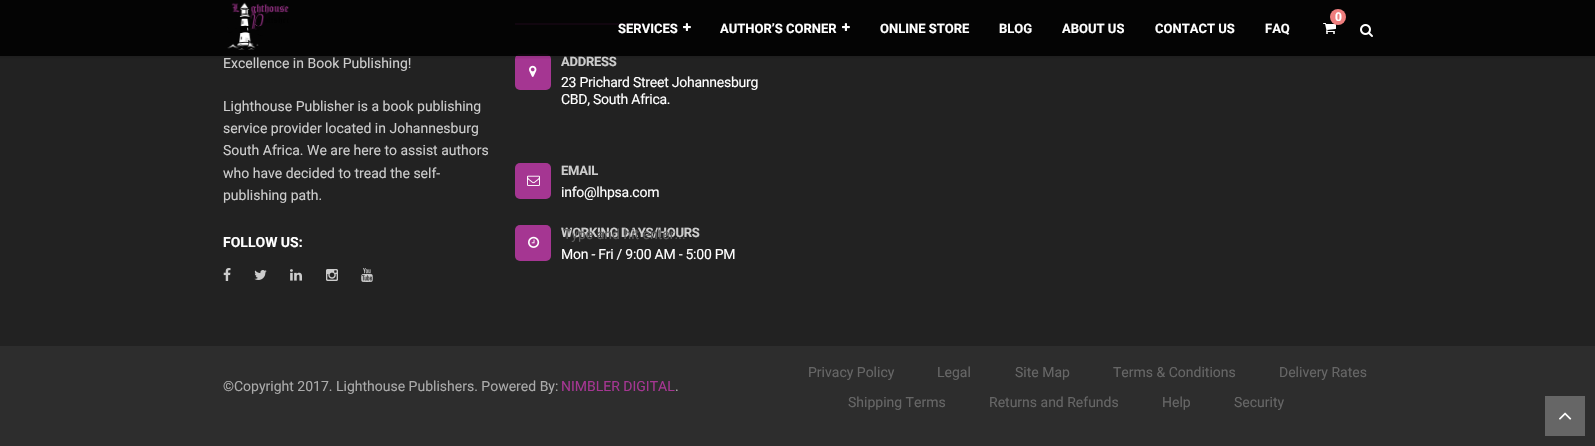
#include "include/core/SkBlurTypes.h"
#include "include/core/SkCanvas.h"
#include "include/core/SkData.h"
#include "include/core/SkFont.h"
#include "include/core/SkFontMgr.h"
#include "include/core/SkImage.h"
#include "include/core/SkMaskFilter.h"
#include "include/core/SkPaint.h"
#include "include/core/SkPathBuilder.h"
#include "include/core/SkTextBlob.h"
#include "include/effects/SkDashPathEffect.h"
#include "include/effects/SkGradientShader.h"
#include "include/utils/SkParsePath.h"

extern sk_sp<SkFontMgr> fontMgr;

static SkFont font(const char* family, int weight, float size, bool italic = false) {
    SkFontStyle style(weight, SkFontStyle::kNormal_Width,
        italic ? SkFontStyle::kItalic_Slant : SkFontStyle::kUpright_Slant);
    SkFont result(fontMgr->matchFamilyStyle(family, style), size);
    result.setSubpixel(true);
    return result;
}

static void drawLabel(SkCanvas* canvas, const char* s, float x, float y, const SkFont& font, SkColor color) {
    SkPaint ink(SkColor4f::FromColor(color));
    ink.setAntiAlias(true);
    canvas->drawString(s, x, y, font, ink);
}

static void drawTracked(SkCanvas* canvas, const char* s, float x, float y, const SkFont& font, const SkPaint& ink, float letter, float word) {
    std::vector<SkGlyphID> glyphs(font.countText(s, strlen(s), SkTextEncoding::kUTF8));
    std::vector<float> xs(glyphs.size());
    font.textToGlyphs(s, strlen(s), SkTextEncoding::kUTF8, glyphs);
    font.getXPos(glyphs, xs, x);
    float extra = 0;
    for (size_t i = 0; i < glyphs.size(); i++) {
        xs[i] += extra;
        extra += letter + word * (glyphs[i] == font.unicharToGlyph(' '));
    }
    canvas->drawTextBlob(SkTextBlob::MakeFromPosHGlyphs(glyphs, xs, y, font), 0, 0, ink);
}

static void fillRect(SkCanvas* canvas, float x, float y, float w, float h, SkColor color) {
    SkPaint ink(SkColor4f::FromColor(color));
    ink.setAntiAlias(true);
    canvas->drawRect(SkRect::MakeXYWH(x, y, w, h), ink);
}

static void fillRRect(SkCanvas* canvas, float x, float y, float w, float h, float radius, SkColor color) {
    SkPaint ink(SkColor4f::FromColor(color));
    ink.setAntiAlias(true);
    canvas->drawRoundRect(SkRect::MakeXYWH(x, y, w, h), radius, radius, ink);
}

static void drawPhoto(SkCanvas* canvas, const char* path, float x, float y, float w, float h) {
    auto image = SkImages::DeferredFromEncodedData(SkData::MakeFromFileName(path));
    canvas->drawImageRect(image, SkRect::MakeXYWH(x, y, w, h), SkSamplingOptions());
}

void draw(SkCanvas* canvas) {
    SkPaint paint;
    paint.setAntiAlias(true);
    canvas->clear(0xFF222222);
    fillRect(canvas, 515, 23, 127, 2, 0xFFA53692);
    fillRRect(canvas, 515, 54, 36, 36, 5, 0xFFA53692);
    canvas->save();
    canvas->clipRect(SkRect::MakeXYWH(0, 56, 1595, 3));
    paint.setColor(0x1A000000);
    paint.setMaskFilter(SkMaskFilter::MakeBlur(kNormal_SkBlurStyle, 1.5f));
    canvas->drawRect(SkRect::MakeXYWH(-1, -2, 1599, 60), paint);
    paint.setMaskFilter(nullptr);
    canvas->restore();
    fillRect(canvas, 0, 0, 1595, 56, 0xE6000000);
    drawPhoto(canvas, "assets/img1.png", 227, 2, 62, 48);
    drawPhoto(canvas, "assets/img2.png", 1323, 23, 13, 11);
    paint.setColor(0xFFEF7E7E);
    canvas->drawCircle(1338, 17, 8, paint);
    SkFont font1 = font("Roboto", 700, 12);
    drawLabel(canvas, "0", 1335, 21, font1, 0xFFFFFFFF);
    drawPhoto(canvas, "assets/img3.png", 1360, 24, 13, 13);
    SkFont font2 = font("Roboto", 700, 13);
    drawLabel(canvas, "SERVICES", 618, 33, font2, 0xFFFFFFFF);
    drawPhoto(canvas, "assets/img4.png", 683, 23, 8, 8);
    drawLabel(canvas, "AUTHOR’S CORNER", 720, 33, font2, 0xFFFFFFFF);
    drawPhoto(canvas, "assets/img4.png", 842, 23, 8, 8);
    drawLabel(canvas, "ONLINE STORE", 880, 33, font2, 0xFFFFFFFF);
    drawLabel(canvas, "BLOG", 999, 33, font2, 0xFFFFFFFF);
    drawLabel(canvas, "ABOUT US", 1062, 33, font2, 0xFFFFFFFF);
    drawLabel(canvas, "CONTACT US", 1155, 33, font2, 0xFFFFFFFF);
    drawLabel(canvas, "FAQ", 1265, 33, font2, 0xFFFFFFFF);
    SkFont font3 = font("Roboto", 400, 14);
    drawLabel(canvas, "Excellence in Book Publishing!", 223, 68, font3, 0xFFCCCCCC);
    drawLabel(canvas, "Lighthouse Publisher is a book publishing", 223, 111, font3, 0xFFCCCCCC);
    drawLabel(canvas, "service provider located in Johannesburg", 223, 133, font3, 0xFFCCCCCC);
    drawLabel(canvas, "South Africa. We are here to assist authors", 223, 155, font3, 0xFFCCCCCC);
    drawLabel(canvas, "who have decided to tread the self-", 223, 178, font3, 0xFFCCCCCC);
    drawLabel(canvas, "publishing path.", 223, 200, font3, 0xFFCCCCCC);
    SkFont font4 = font("Roboto", 700, 14);
    drawLabel(canvas, "FOLLOW US:", 223, 247, font4, 0xFFFFFFFF);
    drawPhoto(canvas, "assets/img5.png", 223, 268, 8, 13);
    drawPhoto(canvas, "assets/img6.png", 254, 270, 13, 10);
    drawPhoto(canvas, "assets/img7.png", 290, 269, 12, 12);
    drawPhoto(canvas, "assets/img8.png", 326, 269, 12, 12);
    drawPhoto(canvas, "assets/img9.png", 361, 268, 12, 14);
    drawPhoto(canvas, "assets/img10.png", 529, 65, 8, 12);
    paint.setColor(0xFFCCCCCC);
    drawTracked(canvas, "ADDRESS", 561, 66, font2, paint, -0.25f, 0);
    paint.setColor(0xFFFFFFFF);
    drawTracked(canvas, "23 Prichard Street Johannesburg", 561, 87, font3, paint, -0.25f, 0);
    drawTracked(canvas, "CBD, South Africa.", 561, 104, font3, paint, -0.25f, 0);
    fillRRect(canvas, 515, 163, 36, 36, 5, 0xFFA53692);
    drawPhoto(canvas, "assets/img11.png", 527, 175, 13, 11);
    paint.setColor(0xFFCCCCCC);
    drawTracked(canvas, "EMAIL", 561, 175, font2, paint, -0.25f, 0);
    paint.setColor(0xFFFFFFFF);
    drawTracked(canvas, "info@lhpsa.com", 561, 197, font3, paint, -0.25f, 0);
    fillRRect(canvas, 515, 225, 36, 36, 5, 0xFFA53692);
    drawPhoto(canvas, "assets/img12.png", 528, 236, 12, 12);
    paint.setColor(0xFFCCCCCC);
    drawTracked(canvas, "WORKING DAYS/HOURS", 561, 237, font2, paint, -0.25f, 0);
    paint.setColor(0xFFFFFFFF);
    drawTracked(canvas, "Mon - Fri / 9:00 AM - 5:00 PM", 561, 259, font3, paint, -0.25f, 0);
    fillRect(canvas, 0, 346, 1595, 100, 0xFF2D2D2D);
    drawLabel(canvas, "©Copyright 2017. Lighthouse Publishers. Powered By:", 223, 391, font3, 0xFFAAAAAA);
    drawLabel(canvas, "NIMBLER DIGITAL", 561, 391, font3, 0xFFA53692);
    drawLabel(canvas, ".", 675, 391, font3, 0xFFAAAAAA);
    drawLabel(canvas, "Privacy Policy", 808, 377, font3, 0xFF666666);
    drawLabel(canvas, "Legal", 937, 377, font3, 0xFF666666);
    drawLabel(canvas, "Site Map", 1015, 377, font3, 0xFF666666);
    drawLabel(canvas, "Terms & Conditions", 1113, 377, font3, 0xFF666666);
    drawLabel(canvas, "Delivery Rates", 1279, 377, font3, 0xFF666666);
    drawLabel(canvas, "Shipping Terms", 848, 407, font3, 0xFF666666);
    drawLabel(canvas, "Returns and Refunds", 989, 407, font3, 0xFF666666);
    drawLabel(canvas, "Help", 1162, 407, font3, 0xFF666666);
    drawLabel(canvas, "Security", 1234, 407, font3, 0xFF666666);
    drawLabel(canvas, "Type and hit enter...", 563, 239, font3, 0xFF5B5B5B);
    fillRect(canvas, 1545, 396, 40, 40, 0xFF666666);
    drawPhoto(canvas, "assets/img13.png", 1559, 412, 13, 8);
}
